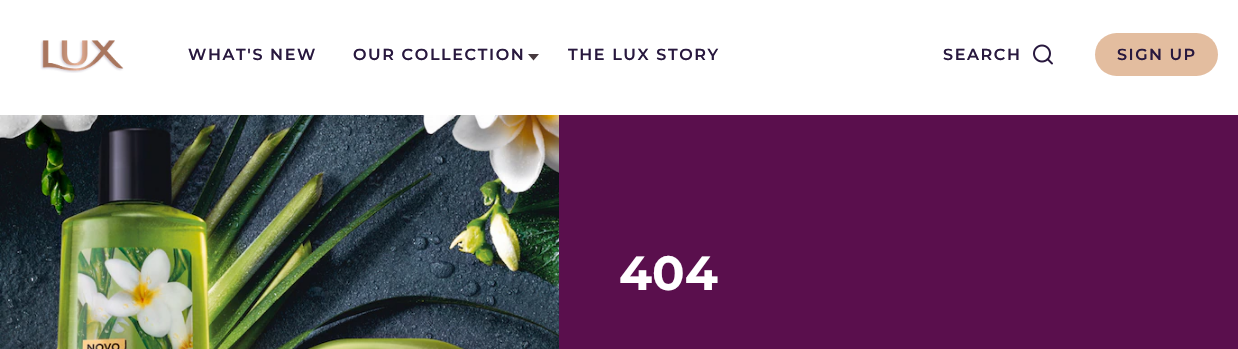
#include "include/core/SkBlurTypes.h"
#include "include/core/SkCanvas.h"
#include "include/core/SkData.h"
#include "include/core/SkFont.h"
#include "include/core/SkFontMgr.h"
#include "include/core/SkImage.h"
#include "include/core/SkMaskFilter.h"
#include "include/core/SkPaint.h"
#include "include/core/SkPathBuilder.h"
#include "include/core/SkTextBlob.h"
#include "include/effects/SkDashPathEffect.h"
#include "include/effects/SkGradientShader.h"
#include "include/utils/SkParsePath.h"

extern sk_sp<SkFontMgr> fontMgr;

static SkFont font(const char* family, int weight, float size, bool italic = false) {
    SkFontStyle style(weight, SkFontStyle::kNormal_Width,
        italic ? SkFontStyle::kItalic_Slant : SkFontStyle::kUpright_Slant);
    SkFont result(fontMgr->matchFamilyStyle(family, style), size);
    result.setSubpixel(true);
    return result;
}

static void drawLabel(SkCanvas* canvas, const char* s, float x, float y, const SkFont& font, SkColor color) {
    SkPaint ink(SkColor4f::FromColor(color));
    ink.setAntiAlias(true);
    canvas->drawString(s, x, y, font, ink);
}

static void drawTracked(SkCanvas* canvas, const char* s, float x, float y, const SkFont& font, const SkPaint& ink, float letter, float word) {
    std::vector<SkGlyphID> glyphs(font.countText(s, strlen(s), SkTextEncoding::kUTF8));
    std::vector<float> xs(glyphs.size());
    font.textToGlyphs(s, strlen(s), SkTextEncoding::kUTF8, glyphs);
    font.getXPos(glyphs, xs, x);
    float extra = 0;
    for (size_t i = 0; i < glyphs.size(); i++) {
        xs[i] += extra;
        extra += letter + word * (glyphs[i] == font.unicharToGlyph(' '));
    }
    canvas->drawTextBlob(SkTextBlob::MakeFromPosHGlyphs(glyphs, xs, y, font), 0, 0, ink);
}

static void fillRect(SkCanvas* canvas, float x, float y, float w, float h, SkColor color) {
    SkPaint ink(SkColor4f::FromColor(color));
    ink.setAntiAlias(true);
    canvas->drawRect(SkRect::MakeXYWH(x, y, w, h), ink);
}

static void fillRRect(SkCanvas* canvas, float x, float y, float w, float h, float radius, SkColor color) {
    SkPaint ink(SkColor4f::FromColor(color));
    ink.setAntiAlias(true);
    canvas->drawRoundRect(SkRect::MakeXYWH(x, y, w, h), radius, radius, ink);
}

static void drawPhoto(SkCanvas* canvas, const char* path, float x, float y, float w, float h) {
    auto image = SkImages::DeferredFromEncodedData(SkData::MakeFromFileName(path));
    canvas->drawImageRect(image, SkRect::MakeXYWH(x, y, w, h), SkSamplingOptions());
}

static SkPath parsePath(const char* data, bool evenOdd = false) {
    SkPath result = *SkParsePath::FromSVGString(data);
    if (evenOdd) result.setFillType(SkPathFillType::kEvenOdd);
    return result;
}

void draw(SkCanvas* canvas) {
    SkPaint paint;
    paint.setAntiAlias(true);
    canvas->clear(0xFFFFFFFF);
    drawPhoto(canvas, "assets/img1.png", 40, 40, 84, 33);
    SkFont font1 = font("Montserrat", 600, 16);
    paint.setColor(0xFF28183E);
    drawTracked(canvas, "WHAT'S NEW", 188, 60, font1, paint, 1.6f, 0);
    drawTracked(canvas, "OUR COLLECTION", 353, 60, font1, paint, 1.6f, 0);
    paint.setColor(0xFF473A3F);
    canvas->drawPath(parsePath("M533.5 60.5L528 54H539Z"), paint);
    paint.setColor(0xFF28183E);
    drawTracked(canvas, "THE LUX STORY", 568, 60, font1, paint, 1.6f, 0);
    drawTracked(canvas, "SEARCH", 943, 60, font1, paint, 1.6f, 0);
    drawPhoto(canvas, "assets/img2.png", 1033, 44, 20, 21);
    fillRRect(canvas, 1095, 33, 123, 43, 21.5f, 0xFFE3BD9F);
    drawTracked(canvas, "SIGN UP", 1117, 60, font1, paint, 1.5f, 0);
    fillRect(canvas, 559, 115, 679, 234, 0xFF5A0F4D);
    drawPhoto(canvas, "assets/img3.png", 0, 115, 559, 234);
    SkFont font2 = font("Montserrat", 700, 48);
    drawLabel(canvas, "404", 619, 290, font2, 0xFFFFFFFF);
}
